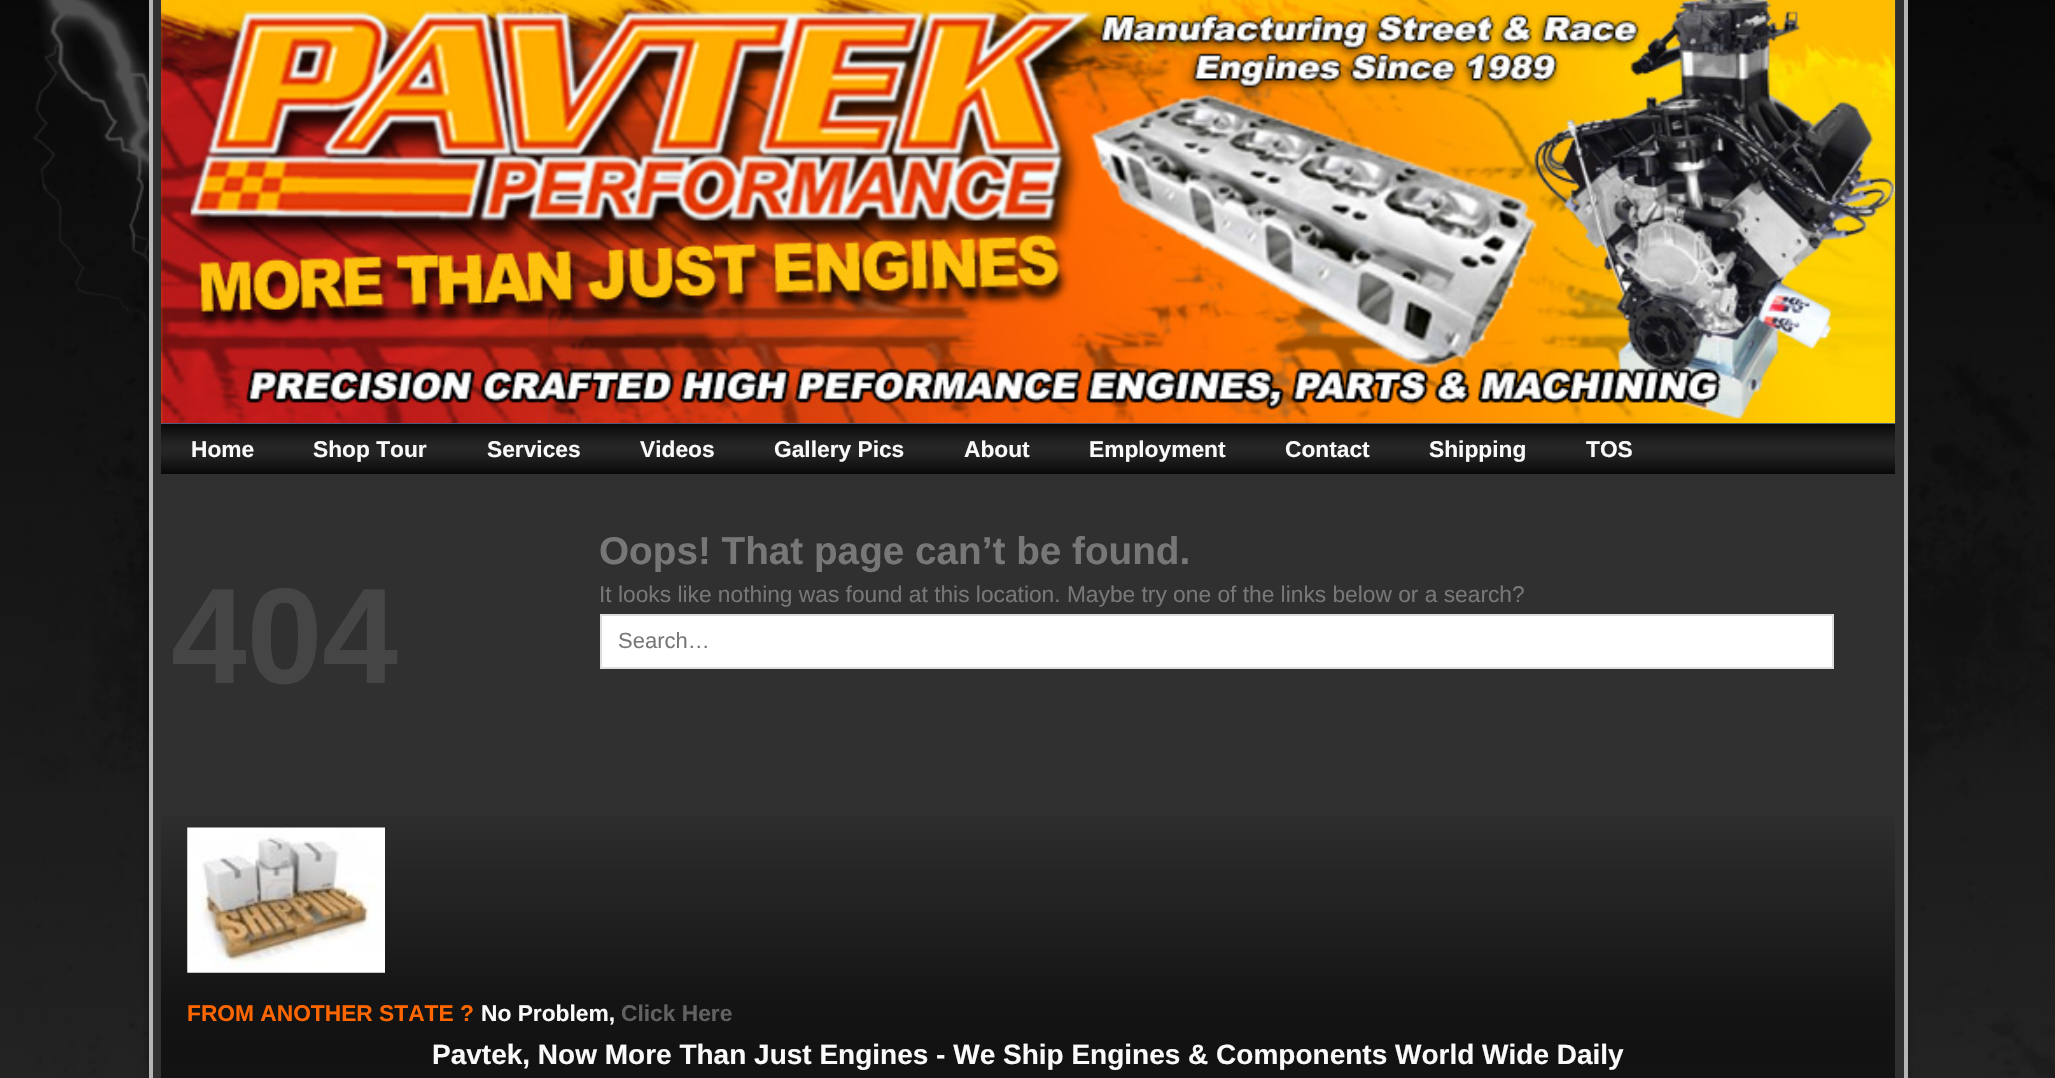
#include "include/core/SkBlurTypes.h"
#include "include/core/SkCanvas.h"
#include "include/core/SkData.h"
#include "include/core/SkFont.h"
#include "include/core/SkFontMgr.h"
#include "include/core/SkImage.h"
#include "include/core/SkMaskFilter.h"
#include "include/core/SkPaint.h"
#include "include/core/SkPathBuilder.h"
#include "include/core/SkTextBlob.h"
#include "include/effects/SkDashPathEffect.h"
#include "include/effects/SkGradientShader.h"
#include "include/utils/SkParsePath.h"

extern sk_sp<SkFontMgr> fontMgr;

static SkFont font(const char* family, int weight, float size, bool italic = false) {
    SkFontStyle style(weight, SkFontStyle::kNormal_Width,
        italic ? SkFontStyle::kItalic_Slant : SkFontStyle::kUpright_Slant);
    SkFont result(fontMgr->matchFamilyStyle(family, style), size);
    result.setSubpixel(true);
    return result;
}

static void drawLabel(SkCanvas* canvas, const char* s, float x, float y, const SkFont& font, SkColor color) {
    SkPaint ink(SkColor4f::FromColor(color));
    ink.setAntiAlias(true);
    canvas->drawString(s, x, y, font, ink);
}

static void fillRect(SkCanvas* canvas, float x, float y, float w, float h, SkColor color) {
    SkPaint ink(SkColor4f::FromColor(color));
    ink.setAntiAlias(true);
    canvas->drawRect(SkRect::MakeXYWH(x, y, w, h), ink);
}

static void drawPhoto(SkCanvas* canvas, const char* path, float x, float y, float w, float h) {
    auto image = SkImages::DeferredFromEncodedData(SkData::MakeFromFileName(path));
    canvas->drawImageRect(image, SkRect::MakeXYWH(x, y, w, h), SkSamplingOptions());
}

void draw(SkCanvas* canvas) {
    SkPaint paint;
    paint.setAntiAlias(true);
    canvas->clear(0xFFFFFFFF);
    drawPhoto(canvas, "assets/img1.png", 0, 0, 2055, 1078);
    paint.setColor(0x26000000);
    paint.setMaskFilter(SkMaskFilter::MakeBlur(kNormal_SkBlurStyle, 2.5f));
    canvas->drawRoundRect(SkRect::MakeXYWH(145, -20, 1766, 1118), 12, 12, paint);
    paint.setMaskFilter(nullptr);
    paint.setColor(0xFF303030);
    canvas->drawRect(SkRect::MakeXYWH(151, -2, 1755, 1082), paint);
    paint.setStroke(true);
    paint.setStrokeWidth(4);
    paint.setColor(0xFFB5B5B5);
    canvas->drawRect(SkRect::MakeXYWH(151, -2, 1755, 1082), paint);
    fillRect(canvas, 161, 423, 1734, 1, 0xFF446084);
    drawPhoto(canvas, "assets/img2.png", 161, 0, 1735, 424);
    paint.setStroke(false);
    {
        const SkColor colors[] = {0xFF080808, 0xFF242424, 0xFF262626, 0xFF242424, 0xFF080808};
        const float stops[] = {0, 0.4f, 0.5f, 0.6f, 1};
        const SkPoint ends[] = {{1028, 423}, {1028, 474}};
        paint.setShader(SkGradientShader::MakeLinear(ends, colors, stops, 5, SkTileMode::kClamp));
        paint.setAlpha(255);
    }
    canvas->drawRect(SkRect::MakeXYWH(161, 424, 1734, 50), paint);
    SkFont font1 = font("Liberation Sans", 700, 22.75f);
    drawLabel(canvas, "Home", 191, 457, font1, 0xFFFAFAFA);
    drawLabel(canvas, "Shop Tour", 313, 457, font1, 0xFFFAFAFA);
    drawLabel(canvas, "Services", 487, 457, font1, 0xFFFAFAFA);
    drawLabel(canvas, "Videos", 640, 457, font1, 0xFFFAFAFA);
    drawLabel(canvas, "Gallery Pics", 774, 457, font1, 0xFFFAFAFA);
    drawLabel(canvas, "About", 964, 457, font1, 0xFFFAFAFA);
    drawLabel(canvas, "Employment", 1089, 457, font1, 0xFFFAFAFA);
    drawLabel(canvas, "Contact", 1285, 457, font1, 0xFFFAFAFA);
    drawLabel(canvas, "Shipping", 1429, 457, font1, 0xFFFAFAFA);
    drawLabel(canvas, "TOS", 1586, 457, font1, 0xFFFAFAFA);
    SkFont font2 = font("Liberation Sans", 700, 136);
    drawLabel(canvas, "404", 171, 683, font2, 0xFF454545);
    SkFont font3 = font("Liberation Sans", 700, 38.7f);
    drawLabel(canvas, "Oops! That page can’t be found.", 599, 564, font3, 0xFF777777);
    SkFont font4 = font("Liberation Sans", 400, 22.75f);
    drawLabel(canvas, "It looks like nothing was found at this location. Maybe try one of the links below or a search?", 599, 602, font4, 0xFF777777);
    paint.setShader(nullptr);
    paint.setColor(0xFFFFFFFF);
    canvas->drawRect(SkRect::MakeXYWH(601, 615, 1232, 53), paint);
    paint.setStroke(true);
    paint.setStrokeWidth(2);
    paint.setColor(0xFFDDDDDD);
    canvas->drawRect(SkRect::MakeXYWH(601, 615, 1232, 53), paint);
    SkFont font5 = font("Liberation Sans", 400, 22);
    drawLabel(canvas, "Search…", 618, 648, font5, 0xFF777777);
    paint.setStroke(false);
    {
        const SkColor colors[] = {0xFF303030, 0xFF141414, 0xFF121212, 0xFF141414, 0xFF303030};
        const float stops[] = {0, 0.4f, 0.5f, 0.6f, 1};
        const SkPoint ends[] = {{1028, 798}, {1028, 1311}};
        paint.setShader(SkGradientShader::MakeLinear(ends, colors, stops, 5, SkTileMode::kClamp));
        paint.setAlpha(255);
    }
    canvas->drawRect(SkRect::MakeXYWH(161, 816, 1734, 262), paint);
    drawPhoto(canvas, "assets/img3.png", 187, 827, 198, 146);
    drawLabel(canvas, "FROM ANOTHER STATE ?", 187, 1021, font1, 0xFFFF6600);
    drawLabel(canvas, "No Problem,", 481, 1021, font1, 0xFFFAFAFA);
    drawLabel(canvas, "Click Here", 621, 1021, font1, 0xFF616161);
    SkFont font6 = font("Liberation Sans", 700, 28);
    drawLabel(canvas, "Pavtek, Now More Than Just Engines - We Ship Engines & Components World Wide Daily", 432, 1064, font6, 0xFFFAFAFA);
}
